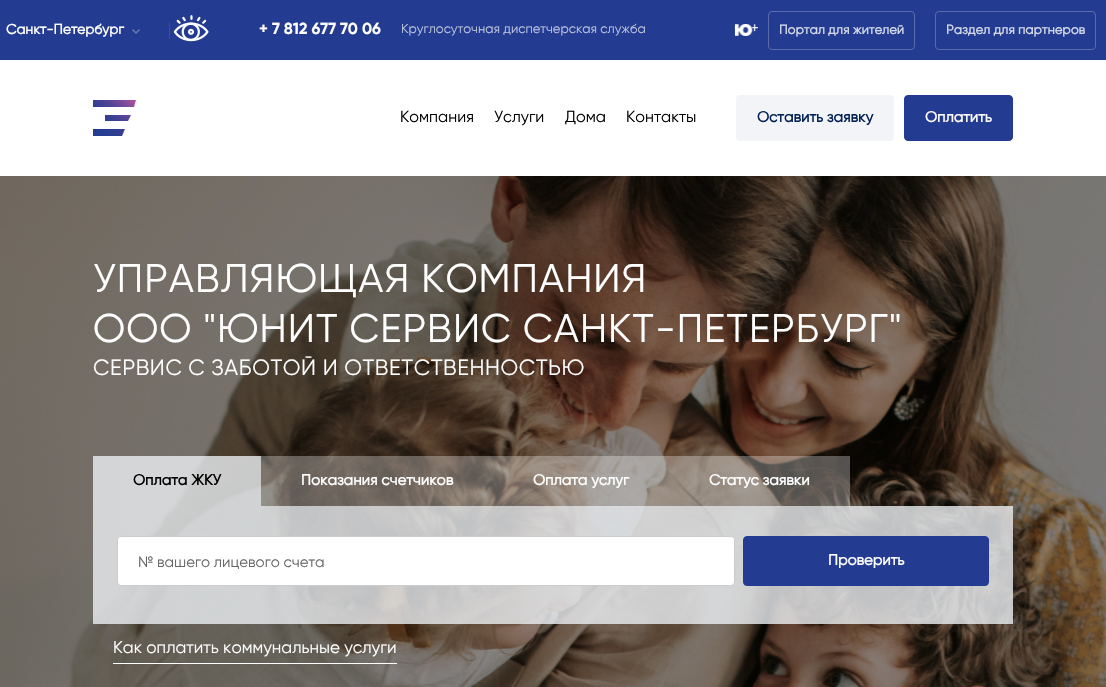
#include "include/core/SkBlurTypes.h"
#include "include/core/SkCanvas.h"
#include "include/core/SkData.h"
#include "include/core/SkFont.h"
#include "include/core/SkFontMgr.h"
#include "include/core/SkImage.h"
#include "include/core/SkMaskFilter.h"
#include "include/core/SkPaint.h"
#include "include/core/SkPathBuilder.h"
#include "include/core/SkTextBlob.h"
#include "include/effects/SkDashPathEffect.h"
#include "include/effects/SkGradientShader.h"
#include "include/utils/SkParsePath.h"

extern sk_sp<SkFontMgr> fontMgr;

static SkFont font(const char* family, int weight, float size, bool italic = false) {
    SkFontStyle style(weight, SkFontStyle::kNormal_Width,
        italic ? SkFontStyle::kItalic_Slant : SkFontStyle::kUpright_Slant);
    SkFont result(fontMgr->matchFamilyStyle(family, style), size);
    result.setSubpixel(true);
    return result;
}

static void drawLabel(SkCanvas* canvas, const char* s, float x, float y, const SkFont& font, SkColor color) {
    SkPaint ink(SkColor4f::FromColor(color));
    ink.setAntiAlias(true);
    canvas->drawString(s, x, y, font, ink);
}

static void drawTracked(SkCanvas* canvas, const char* s, float x, float y, const SkFont& font, const SkPaint& ink, float letter, float word) {
    std::vector<SkGlyphID> glyphs(font.countText(s, strlen(s), SkTextEncoding::kUTF8));
    std::vector<float> xs(glyphs.size());
    font.textToGlyphs(s, strlen(s), SkTextEncoding::kUTF8, glyphs);
    font.getXPos(glyphs, xs, x);
    float extra = 0;
    for (size_t i = 0; i < glyphs.size(); i++) {
        xs[i] += extra;
        extra += letter + word * (glyphs[i] == font.unicharToGlyph(' '));
    }
    canvas->drawTextBlob(SkTextBlob::MakeFromPosHGlyphs(glyphs, xs, y, font), 0, 0, ink);
}

static void fillRect(SkCanvas* canvas, float x, float y, float w, float h, SkColor color) {
    SkPaint ink(SkColor4f::FromColor(color));
    ink.setAntiAlias(true);
    canvas->drawRect(SkRect::MakeXYWH(x, y, w, h), ink);
}

static void drawPhoto(SkCanvas* canvas, const char* path, float x, float y, float w, float h) {
    auto image = SkImages::DeferredFromEncodedData(SkData::MakeFromFileName(path));
    canvas->drawImageRect(image, SkRect::MakeXYWH(x, y, w, h), SkSamplingOptions());
}

static SkPath parsePath(const char* data, bool evenOdd = false) {
    SkPath result = *SkParsePath::FromSVGString(data);
    if (evenOdd) result.setFillType(SkPathFillType::kEvenOdd);
    return result;
}

void draw(SkCanvas* canvas) {
    SkPaint paint;
    paint.setAntiAlias(true);
    canvas->clear(0xFFFFFFFF);
    fillRect(canvas, 0, 0, 1106, 60, 0xFF233B90);
    fillRect(canvas, 169, 22, 1, 17, 0xFF394F9B);
    SkFont font1 = font("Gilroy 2", 700, 14);
    drawLabel(canvas, "Санкт-Петербург", 6, 34, font1, 0xFFFFFFFF);
    drawPhoto(canvas, "assets/img1.png", 132, 29, 8, 5);
    SkFont font2 = font("Gilroy", 700, 16);
    drawLabel(canvas, "+ 7 812 677 70 06", 259, 34, font2, 0xFFFFFFFF);
    SkFont font3 = font("Gilroy", 400, 13);
    drawLabel(canvas, "Круглосуточная диспетчерская служба", 401, 33, font3, 0xFFBDC4DE);
    drawPhoto(canvas, "assets/img2.png", 734, 24, 24, 12);
    paint.setStroke(true);
    paint.setStrokeWidth(1);
    paint.setColor(0xFF5A6CAC);
    canvas->drawRoundRect(SkRect::MakeXYWH(768.5f, 11.5f, 146, 38), 3.5f, 3.5f, paint);
    SkFont font4 = font("Gilroy 2", 700, 13);
    drawLabel(canvas, "Портал для жителей", 779, 34, font4, 0xFFD3D8E9);
    canvas->drawRoundRect(SkRect::MakeXYWH(935.5f, 11.5f, 160, 38), 3.5f, 3.5f, paint);
    drawLabel(canvas, "Раздел для партнеров", 946, 34, font4, 0xFFD3D8E9);
    drawPhoto(canvas, "assets/img3.png", 173, 15, 36, 27);
    paint.setStroke(false);
    {
        const SkColor colors[] = {0xFF233C91, 0xFF263D91, 0xFF303E92, 0xFF414194, 0xFF594597, 0xFF784B9A, 0xFF9D519E, 0xFFB455A0};
        const float stops[] = {0, 0.21f, 0.37f, 0.52f, 0.66f, 0.8f, 0.93f, 1};
        const SkPoint ends[] = {{91, 134}, {131, 95}};
        paint.setShader(SkGradientShader::MakeLinear(ends, colors, stops, 8, SkTileMode::kClamp));
        paint.setAlpha(255);
    }
    canvas->drawPath(parsePath("M93 136H122L125 129H93ZM93 100V107H134L136 100ZM105 121H128L131 115H105Z"), paint);
    SkFont font5 = font("Gilroy", 400, 16);
    drawLabel(canvas, "Компания", 400, 122, font5, 0xFF000000);
    drawLabel(canvas, "Услуги", 494, 122, font5, 0xFF000000);
    drawLabel(canvas, "Дома", 565, 122, font5, 0xFF000000);
    drawLabel(canvas, "Контакты", 626, 122, font5, 0xFF000000);
    paint.setShader(nullptr);
    paint.setColor(0xFFF3F4F7);
    canvas->drawRoundRect(SkRect::MakeXYWH(736.5f, 95.5f, 157, 45), 3.5f, 3.5f, paint);
    paint.setStroke(true);
    canvas->drawRoundRect(SkRect::MakeXYWH(736.5f, 95.5f, 157, 45), 3.5f, 3.5f, paint);
    SkFont font6 = font("Gilroy 2", 700, 15);
    drawLabel(canvas, "Оставить заявку", 757, 122, font6, 0xFF022156);
    paint.setStroke(false);
    paint.setColor(0xFF233B90);
    canvas->drawRoundRect(SkRect::MakeXYWH(904.5f, 95.5f, 108, 45), 3.5f, 3.5f, paint);
    paint.setStroke(true);
    canvas->drawRoundRect(SkRect::MakeXYWH(904.5f, 95.5f, 108, 45), 3.5f, 3.5f, paint);
    drawLabel(canvas, "Оплатить", 925, 122, font6, 0xFFFFFFFF);
    drawPhoto(canvas, "assets/img4.png", 0, 176, 1106, 511);
    SkFont font7 = font("Gilroy", 400, 40);
    paint.setStroke(false);
    paint.setColor(0xFFFFFFFF);
    drawTracked(canvas, "УПРАВЛЯЮЩАЯ КОМПАНИЯ", 93, 292, font7, paint, 1, 0);
    drawTracked(canvas, "ООО \"ЮНИТ СЕРВИС САНКТ-ПЕТЕРБУРГ\"", 93, 342, font7, paint, 1, 0);
    SkFont font8 = font("Gilroy", 400, 22);
    drawTracked(canvas, "СЕРВИС С ЗАБОТОЙ И ОТВЕТСТВЕННОСТЬЮ", 93, 375, font8, paint, 0.55f, 0);
    fillRect(canvas, 93, 456, 168, 50, 0xCCEBEFF3);
    drawLabel(canvas, "Оплата ЖКУ", 133, 485, font6, 0xFF000000);
    fillRect(canvas, 261, 456, 232, 50, 0x4DFFFFFF);
    drawLabel(canvas, "Показания счетчиков", 301, 485, font6, 0xFFFFFFFF);
    fillRect(canvas, 493, 456, 176, 50, 0x4DFFFFFF);
    drawLabel(canvas, "Оплата услуг", 533, 485, font6, 0xFFFFFFFF);
    fillRect(canvas, 669, 456, 181, 50, 0x4DFFFFFF);
    drawLabel(canvas, "Статус заявки", 709, 485, font6, 0xFFFFFFFF);
    fillRect(canvas, 93, 506, 920, 118, 0xCCEBEFF3);
    canvas->drawRoundRect(SkRect::MakeXYWH(117.5f, 536.5f, 617, 49), 3.5f, 3.5f, paint);
    paint.setStroke(true);
    paint.setColor(0xFFCCCCCC);
    canvas->drawRoundRect(SkRect::MakeXYWH(117.5f, 536.5f, 617, 49), 3.5f, 3.5f, paint);
    SkFont font9 = font("Gilroy", 400, 15);
    drawLabel(canvas, "№ вашего лицевого счета", 138, 567, font9, 0xFF666666);
    paint.setStroke(false);
    paint.setColor(0xFF233B90);
    canvas->drawRoundRect(SkRect::MakeXYWH(743.5f, 536.5f, 245, 49), 3.5f, 3.5f, paint);
    paint.setStroke(true);
    canvas->drawRoundRect(SkRect::MakeXYWH(743.5f, 536.5f, 245, 49), 3.5f, 3.5f, paint);
    drawLabel(canvas, "Проверить", 828, 565, font6, 0xFFFFFFFF);
    fillRect(canvas, 113, 663, 284, 1, 0xFFFFFFFF);
    SkFont font10 = font("Gilroy", 400, 17);
    drawLabel(canvas, "Как оплатить коммунальные услуги", 113, 653, font10, 0xFFFFFFFF);
}
